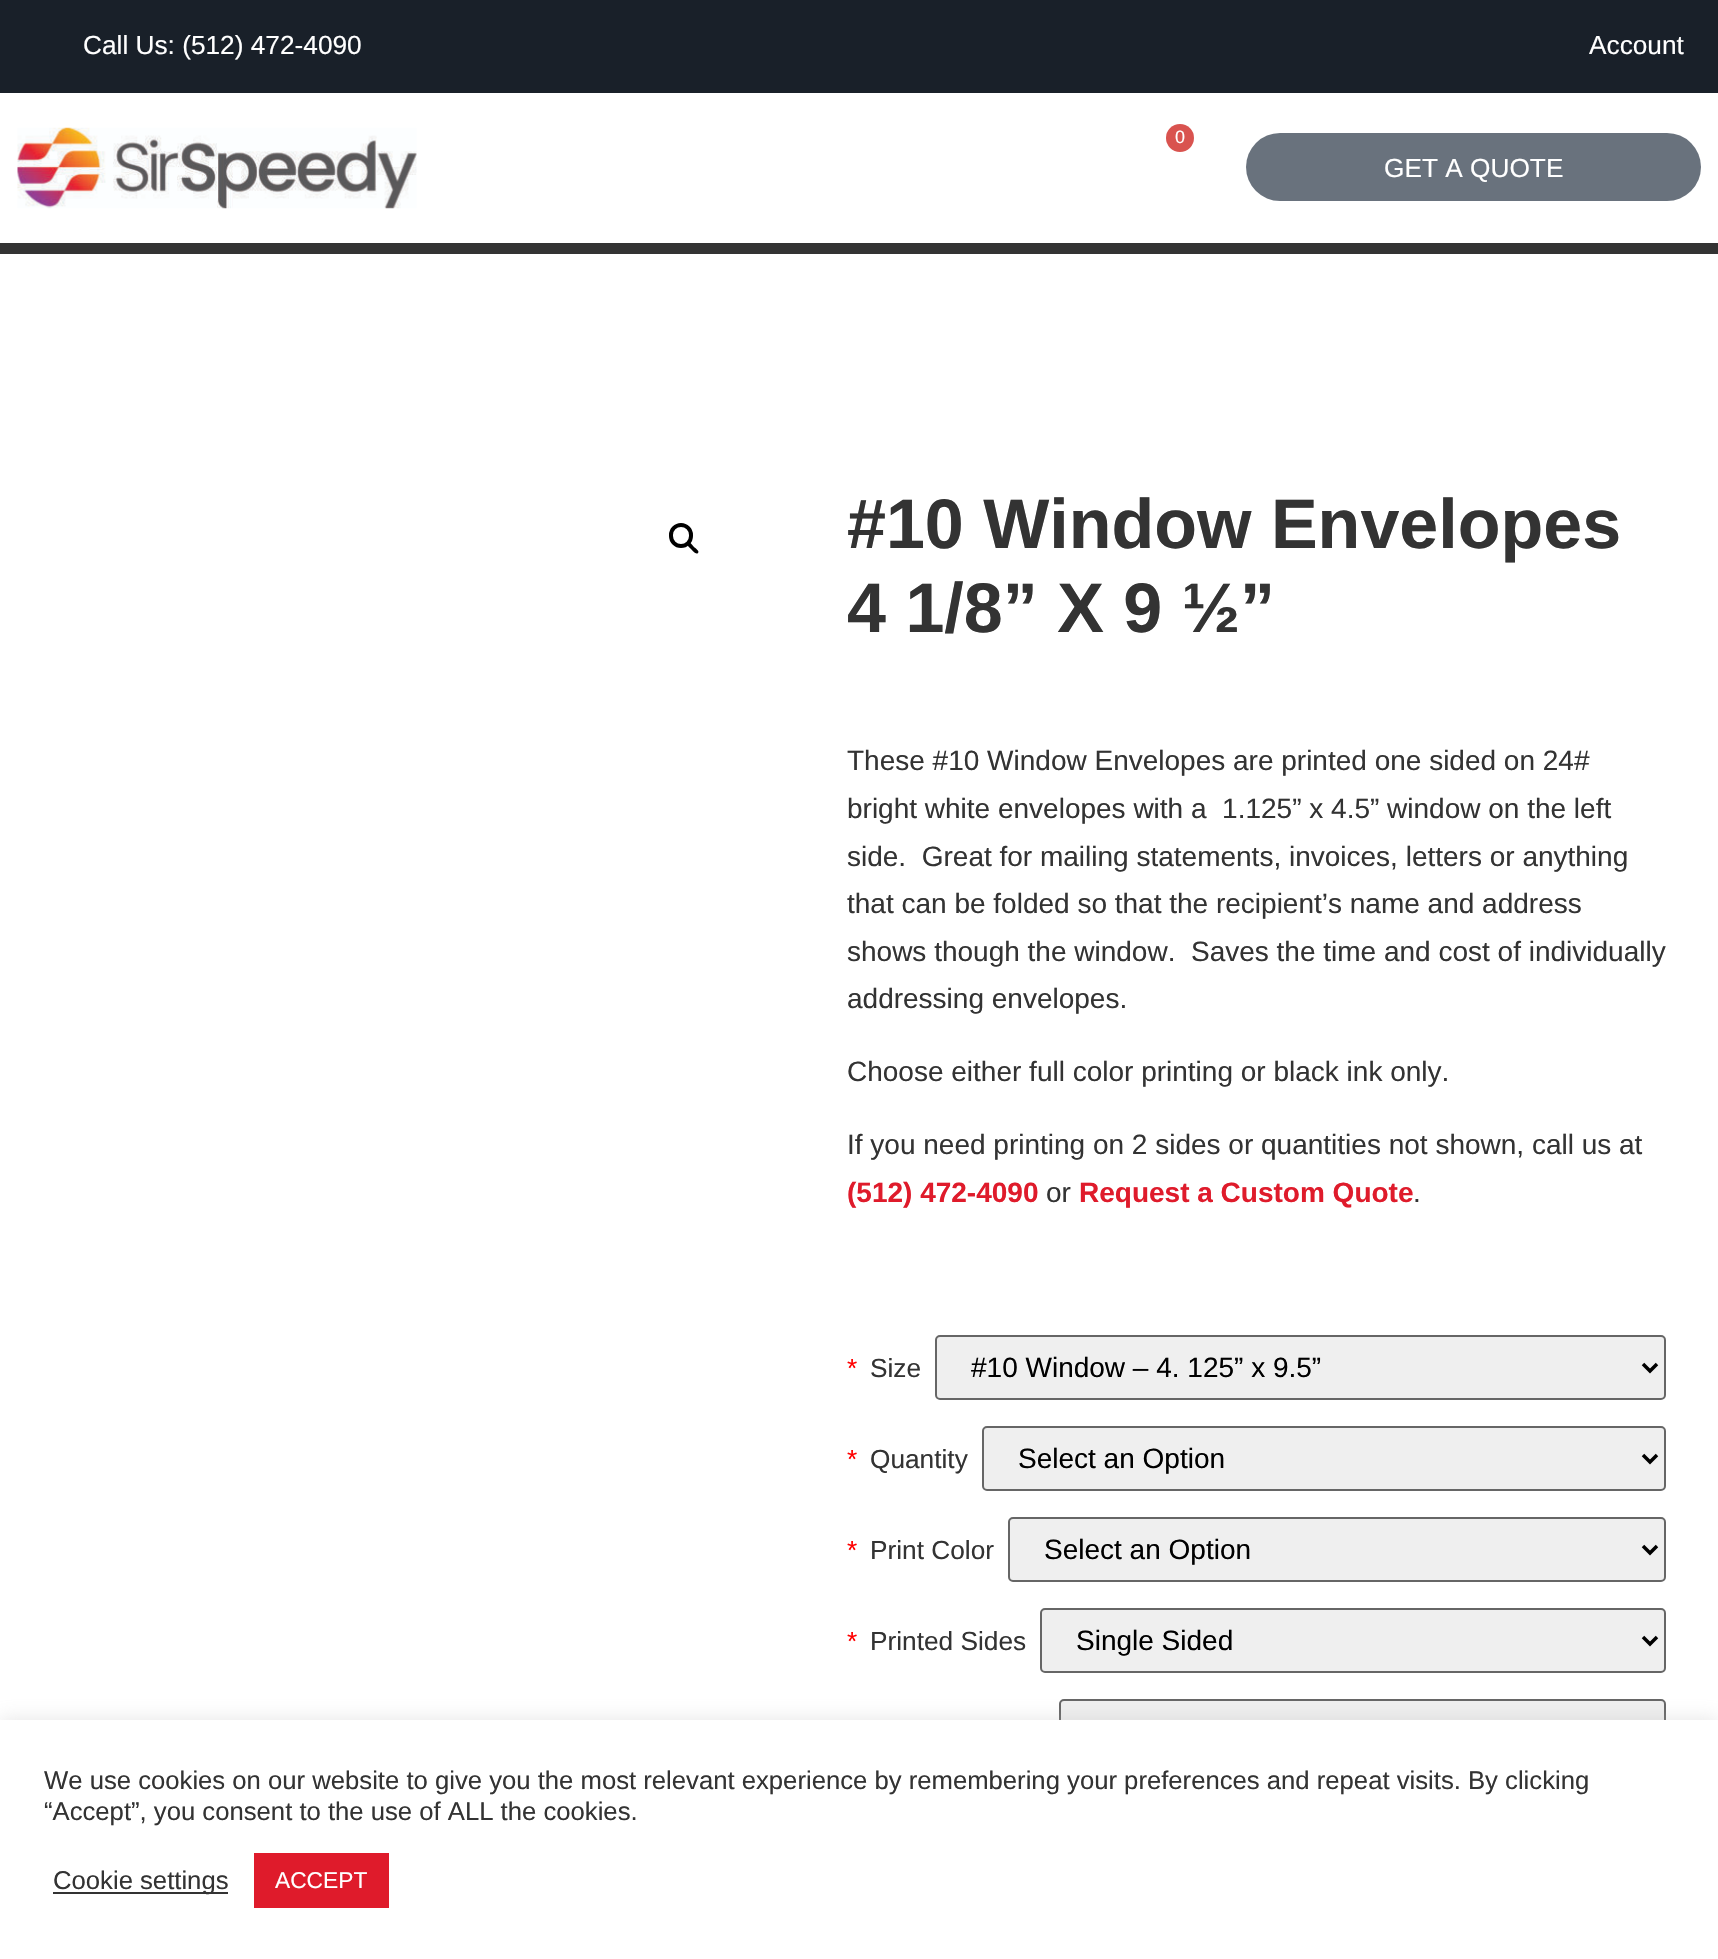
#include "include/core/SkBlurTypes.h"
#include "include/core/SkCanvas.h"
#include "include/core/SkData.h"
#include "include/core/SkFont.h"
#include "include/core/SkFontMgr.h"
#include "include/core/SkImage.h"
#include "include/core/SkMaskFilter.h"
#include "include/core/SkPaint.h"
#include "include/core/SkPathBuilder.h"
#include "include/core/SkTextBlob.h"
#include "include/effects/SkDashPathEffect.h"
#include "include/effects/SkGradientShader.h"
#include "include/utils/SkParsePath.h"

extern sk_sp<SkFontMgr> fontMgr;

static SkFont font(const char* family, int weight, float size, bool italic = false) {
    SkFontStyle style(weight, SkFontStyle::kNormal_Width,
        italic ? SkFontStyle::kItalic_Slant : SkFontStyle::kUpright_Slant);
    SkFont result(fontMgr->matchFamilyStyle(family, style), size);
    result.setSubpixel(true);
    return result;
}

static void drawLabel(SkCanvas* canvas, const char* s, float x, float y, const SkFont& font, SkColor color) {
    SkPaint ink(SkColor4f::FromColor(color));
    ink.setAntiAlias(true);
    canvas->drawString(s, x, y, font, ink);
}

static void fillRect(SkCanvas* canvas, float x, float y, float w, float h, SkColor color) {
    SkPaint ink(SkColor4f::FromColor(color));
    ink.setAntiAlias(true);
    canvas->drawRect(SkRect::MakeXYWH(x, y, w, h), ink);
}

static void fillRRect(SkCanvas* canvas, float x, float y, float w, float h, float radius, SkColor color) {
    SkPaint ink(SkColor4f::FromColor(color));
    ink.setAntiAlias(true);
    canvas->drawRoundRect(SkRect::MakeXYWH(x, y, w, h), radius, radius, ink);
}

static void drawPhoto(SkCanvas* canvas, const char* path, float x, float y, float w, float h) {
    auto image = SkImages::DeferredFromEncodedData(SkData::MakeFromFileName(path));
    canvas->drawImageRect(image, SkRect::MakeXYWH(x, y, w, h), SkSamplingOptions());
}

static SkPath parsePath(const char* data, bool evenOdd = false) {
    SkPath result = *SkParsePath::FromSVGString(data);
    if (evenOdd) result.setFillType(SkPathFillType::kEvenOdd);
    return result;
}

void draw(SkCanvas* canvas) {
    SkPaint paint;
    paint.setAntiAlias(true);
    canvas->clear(0xFFFFFFFF);
    fillRect(canvas, 0, 0, 1718, 93, 0xFF192029);
    SkFont font1 = font("Liberation Sans", 400, 26.25f);
    drawLabel(canvas, "Call Us: (512) 472-4090", 83, 54, font1, 0xFFFFFFFF);
    drawLabel(canvas, "Account", 1589, 54, font1, 0xFFFFFFFF);
    fillRect(canvas, 0, 243, 1718, 11, 0xFF333333);
    drawPhoto(canvas, "assets/img1.png", 17, 127, 400, 82);
    paint.setColor(0xFFD9534F);
    canvas->drawCircle(1180, 138, 14, paint);
    SkFont font2 = font("Liberation Sans", 400, 18);
    drawLabel(canvas, "0", 1175, 143, font2, 0xFFFFFFFF);
    fillRRect(canvas, 1246, 133, 455, 68, 34, 0xFF69727D);
    drawLabel(canvas, "GET A QUOTE", 1384, 177, font1, 0xFFFFFFFF);
    paint.setStroke(true);
    paint.setStrokeWidth(4);
    paint.setColor(0xFF000000);
    canvas->drawRoundRect(SkRect::MakeXYWH(671, 525, 20, 21), 10, 10, paint);
    paint.setStroke(false);
    canvas->drawPath(parsePath("M688 543C690 541 693 546 694 547C695 548 700 551 698 553C696 555 692.5 550.5 691.5 549.5C690.5 548.5 686 545 688 543Z"), paint);
    SkFont font3 = font("Liberation Sans", 700, 70);
    drawLabel(canvas, "#10 Window Envelopes", 847, 548, font3, 0xFF333333);
    drawLabel(canvas, "4 1/8” X 9 ½”", 847, 632, font3, 0xFF333333);
    SkFont font4 = font("Liberation Sans", 400, 28);
    drawLabel(canvas, "These #10 Window Envelopes are printed one sided on 24#", 847, 770, font4, 0xFF333333);
    drawLabel(canvas, "bright white envelopes with a  1.125” x 4.5” window on the left", 847, 818, font4, 0xFF333333);
    drawLabel(canvas, "side.  Great for mailing statements, invoices, letters or anything", 847, 866, font4, 0xFF333333);
    drawLabel(canvas, "that can be folded so that the recipient’s name and address", 847, 913, font4, 0xFF333333);
    drawLabel(canvas, "shows though the window.  Saves the time and cost of individually", 847, 961, font4, 0xFF333333);
    drawLabel(canvas, "addressing envelopes.", 847, 1008, font4, 0xFF333333);
    drawLabel(canvas, "Choose either full color printing or black ink only.", 847, 1081, font4, 0xFF333333);
    drawLabel(canvas, "If you need printing on 2 sides or quantities not shown, call us at", 847, 1154, font4, 0xFF333333);
    SkFont font5 = font("Liberation Sans", 700, 28);
    drawLabel(canvas, "(512) 472-4090", 847, 1202, font5, 0xFFDF1B2B);
    drawLabel(canvas, "or", 1046, 1202, font4, 0xFF333333);
    drawLabel(canvas, "Request a Custom Quote", 1079, 1202, font5, 0xFFDF1B2B);
    drawLabel(canvas, ".", 1413, 1202, font4, 0xFF333333);
    drawLabel(canvas, "*", 847, 1377, font1, 0xFFFF0000);
    drawLabel(canvas, "Size", 870, 1377, font1, 0xFF333333);
    paint.setColor(0xFFEFEFEF);
    canvas->drawRoundRect(SkRect::MakeXYWH(936, 1336, 729, 63), 4, 4, paint);
    paint.setStroke(true);
    paint.setStrokeWidth(2);
    paint.setColor(0xFF666666);
    canvas->drawRoundRect(SkRect::MakeXYWH(936, 1336, 729, 63), 4, 4, paint);
    paint.setStrokeWidth(3.5f);
    paint.setColor(0xFF000000);
    canvas->drawPath(parsePath("M1643 1364L1650 1371L1657 1364"), paint);
    drawLabel(canvas, "#10 Window – 4. 125” x 9.5”", 971, 1377, font4, 0xFF000000);
    drawLabel(canvas, "*", 847, 1468, font1, 0xFFFF0000);
    drawLabel(canvas, "Quantity", 870, 1468, font1, 0xFF333333);
    paint.setStroke(false);
    paint.setColor(0xFFEFEFEF);
    canvas->drawRoundRect(SkRect::MakeXYWH(983, 1427, 682, 63), 4, 4, paint);
    paint.setStroke(true);
    paint.setStrokeWidth(2);
    paint.setColor(0xFF666666);
    canvas->drawRoundRect(SkRect::MakeXYWH(983, 1427, 682, 63), 4, 4, paint);
    paint.setStrokeWidth(3.5f);
    paint.setColor(0xFF000000);
    canvas->drawPath(parsePath("M1643 1455L1650 1462L1657 1455"), paint);
    drawLabel(canvas, "Select an Option", 1018, 1468, font4, 0xFF000000);
    drawLabel(canvas, "*", 847, 1559, font1, 0xFFFF0000);
    drawLabel(canvas, "Print Color", 870, 1559, font1, 0xFF333333);
    paint.setStroke(false);
    paint.setColor(0xFFEFEFEF);
    canvas->drawRoundRect(SkRect::MakeXYWH(1009, 1518, 656, 63), 4, 4, paint);
    paint.setStroke(true);
    paint.setStrokeWidth(2);
    paint.setColor(0xFF666666);
    canvas->drawRoundRect(SkRect::MakeXYWH(1009, 1518, 656, 63), 4, 4, paint);
    paint.setStrokeWidth(3.5f);
    paint.setColor(0xFF000000);
    canvas->drawPath(parsePath("M1643 1546L1650 1553L1657 1546"), paint);
    drawLabel(canvas, "Select an Option", 1044, 1559, font4, 0xFF000000);
    drawLabel(canvas, "*", 847, 1650, font1, 0xFFFF0000);
    drawLabel(canvas, "Printed Sides", 870, 1650, font1, 0xFF333333);
    paint.setStroke(false);
    paint.setColor(0xFFEFEFEF);
    canvas->drawRoundRect(SkRect::MakeXYWH(1041, 1609, 624, 63), 4, 4, paint);
    paint.setStroke(true);
    paint.setStrokeWidth(2);
    paint.setColor(0xFF666666);
    canvas->drawRoundRect(SkRect::MakeXYWH(1041, 1609, 624, 63), 4, 4, paint);
    paint.setStrokeWidth(3.5f);
    paint.setColor(0xFF000000);
    canvas->drawPath(parsePath("M1643 1637L1650 1644L1657 1637"), paint);
    drawLabel(canvas, "Single Sided", 1076, 1650, font4, 0xFF000000);
    paint.setStroke(false);
    paint.setColor(0xFFEFEFEF);
    canvas->drawRoundRect(SkRect::MakeXYWH(1060, 1700, 605, 63), 4, 4, paint);
    paint.setStroke(true);
    paint.setStrokeWidth(2);
    paint.setColor(0xFF666666);
    canvas->drawRoundRect(SkRect::MakeXYWH(1060, 1700, 605, 63), 4, 4, paint);
    paint.setStroke(false);
    paint.setColor(0x4DACABAB);
    paint.setMaskFilter(SkMaskFilter::MakeBlur(kNormal_SkBlurStyle, 9));
    canvas->drawRect(SkRect::MakeXYWH(0, 1719, 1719, 239), paint);
    paint.setMaskFilter(nullptr);
    fillRect(canvas, 0, 1720, 1718, 239, 0xFFFFFFFF);
    SkFont font6 = font("Liberation Sans", 400, 25.67f);
    drawLabel(canvas, "We use cookies on our website to give you the most relevant experience by remembering your preferences and repeat visits. By clicking", 44, 1789, font6, 0xFF333333);
    drawLabel(canvas, "“Accept”, you consent to the use of ALL the cookies.", 44, 1820, font6, 0xFF333333);
    fillRect(canvas, 53, 1892, 175, 2, 0xFF333333);
    drawLabel(canvas, "Cookie settings", 53, 1889, font6, 0xFF333333);
    fillRect(canvas, 254, 1853, 135, 55, 0xFFDF1B2B);
    SkFont font7 = font("Liberation Sans", 400, 22.75f);
    drawLabel(canvas, "ACCEPT", 275, 1888, font7, 0xFFFFFFFF);
}
